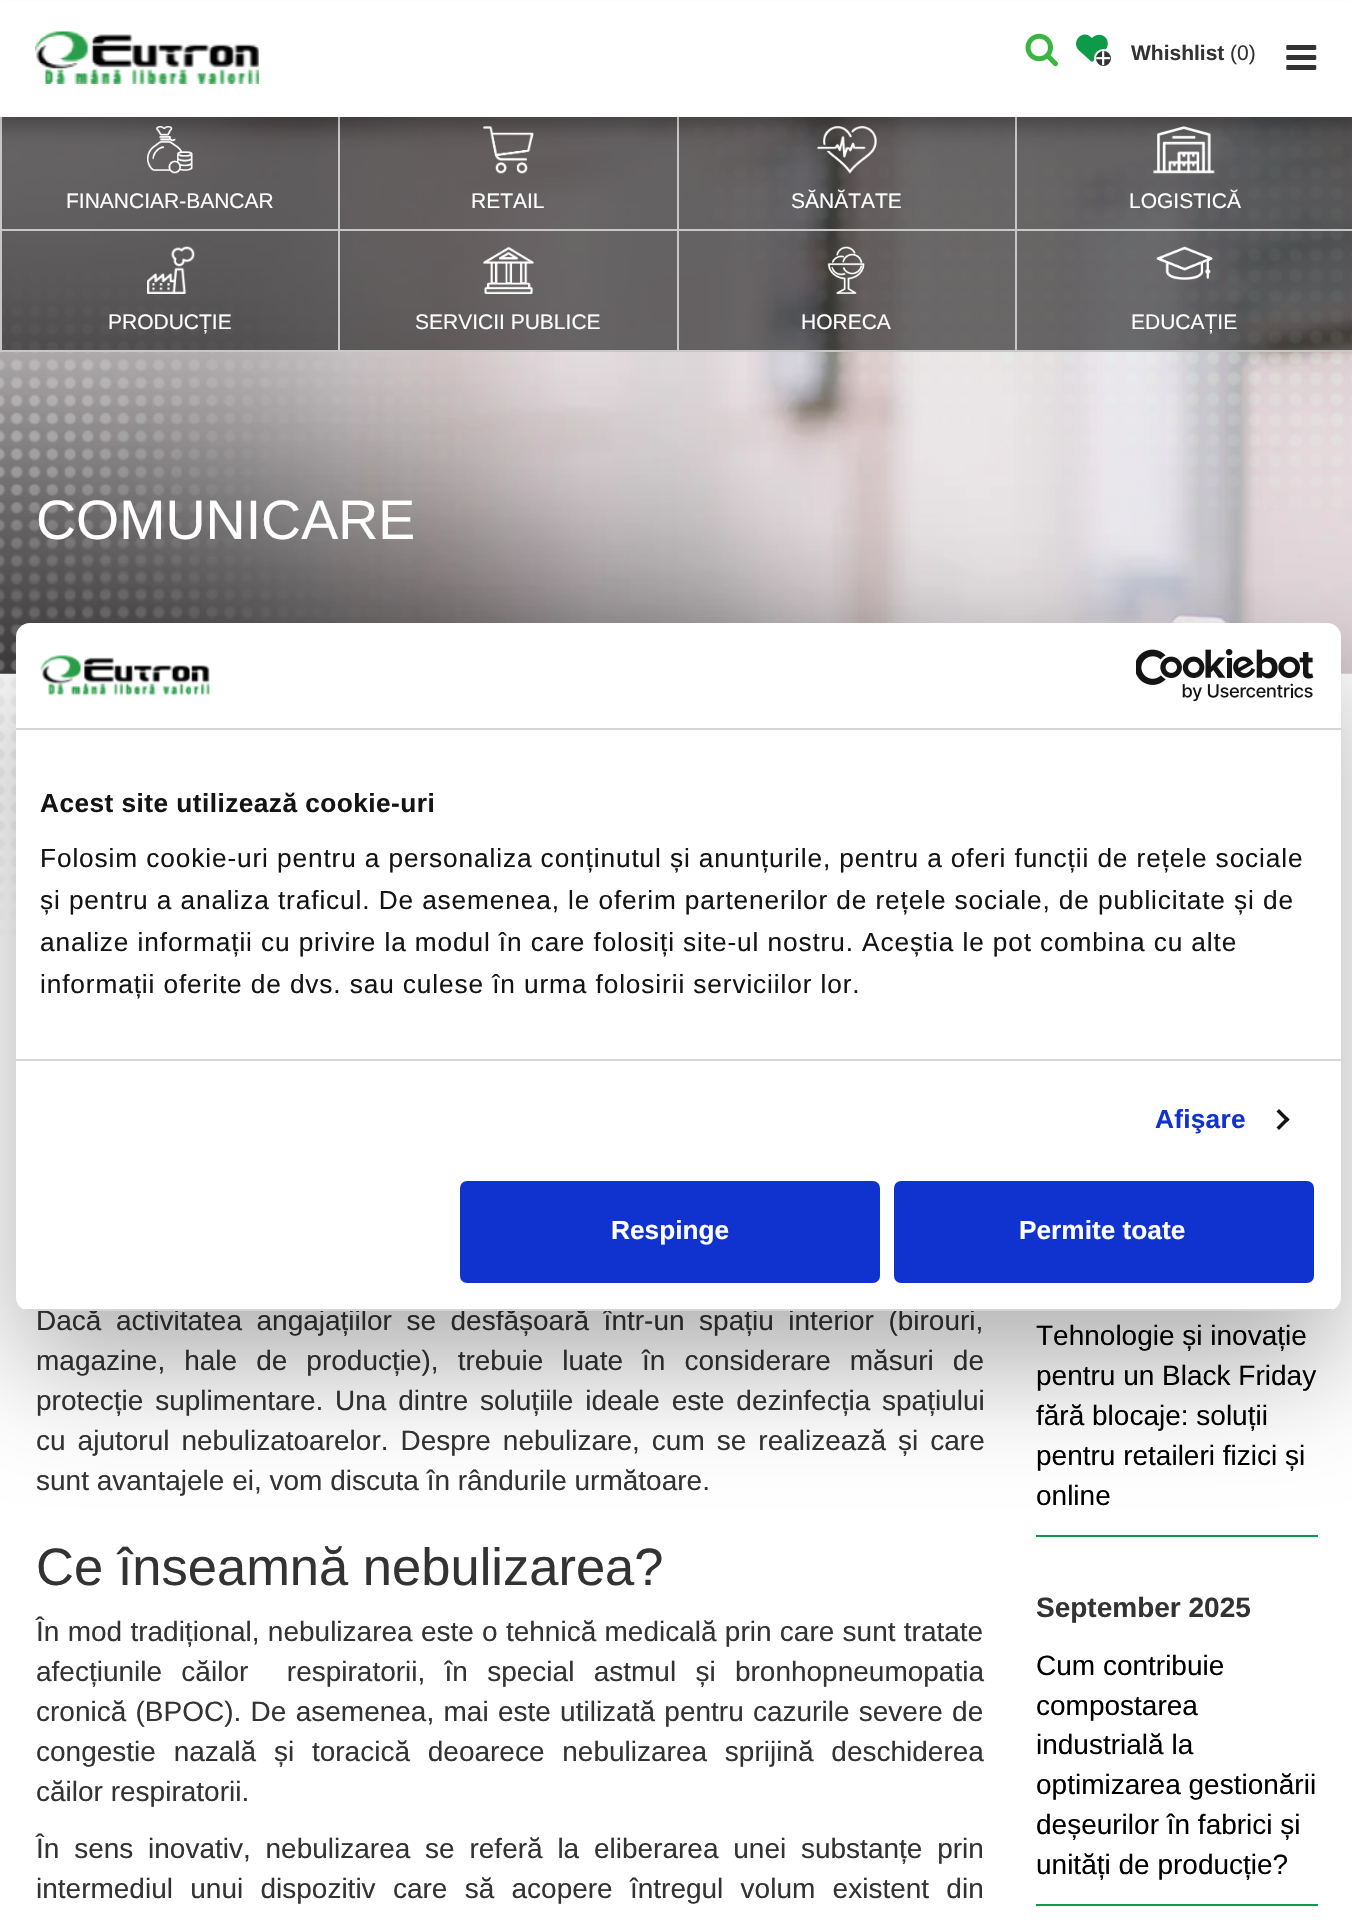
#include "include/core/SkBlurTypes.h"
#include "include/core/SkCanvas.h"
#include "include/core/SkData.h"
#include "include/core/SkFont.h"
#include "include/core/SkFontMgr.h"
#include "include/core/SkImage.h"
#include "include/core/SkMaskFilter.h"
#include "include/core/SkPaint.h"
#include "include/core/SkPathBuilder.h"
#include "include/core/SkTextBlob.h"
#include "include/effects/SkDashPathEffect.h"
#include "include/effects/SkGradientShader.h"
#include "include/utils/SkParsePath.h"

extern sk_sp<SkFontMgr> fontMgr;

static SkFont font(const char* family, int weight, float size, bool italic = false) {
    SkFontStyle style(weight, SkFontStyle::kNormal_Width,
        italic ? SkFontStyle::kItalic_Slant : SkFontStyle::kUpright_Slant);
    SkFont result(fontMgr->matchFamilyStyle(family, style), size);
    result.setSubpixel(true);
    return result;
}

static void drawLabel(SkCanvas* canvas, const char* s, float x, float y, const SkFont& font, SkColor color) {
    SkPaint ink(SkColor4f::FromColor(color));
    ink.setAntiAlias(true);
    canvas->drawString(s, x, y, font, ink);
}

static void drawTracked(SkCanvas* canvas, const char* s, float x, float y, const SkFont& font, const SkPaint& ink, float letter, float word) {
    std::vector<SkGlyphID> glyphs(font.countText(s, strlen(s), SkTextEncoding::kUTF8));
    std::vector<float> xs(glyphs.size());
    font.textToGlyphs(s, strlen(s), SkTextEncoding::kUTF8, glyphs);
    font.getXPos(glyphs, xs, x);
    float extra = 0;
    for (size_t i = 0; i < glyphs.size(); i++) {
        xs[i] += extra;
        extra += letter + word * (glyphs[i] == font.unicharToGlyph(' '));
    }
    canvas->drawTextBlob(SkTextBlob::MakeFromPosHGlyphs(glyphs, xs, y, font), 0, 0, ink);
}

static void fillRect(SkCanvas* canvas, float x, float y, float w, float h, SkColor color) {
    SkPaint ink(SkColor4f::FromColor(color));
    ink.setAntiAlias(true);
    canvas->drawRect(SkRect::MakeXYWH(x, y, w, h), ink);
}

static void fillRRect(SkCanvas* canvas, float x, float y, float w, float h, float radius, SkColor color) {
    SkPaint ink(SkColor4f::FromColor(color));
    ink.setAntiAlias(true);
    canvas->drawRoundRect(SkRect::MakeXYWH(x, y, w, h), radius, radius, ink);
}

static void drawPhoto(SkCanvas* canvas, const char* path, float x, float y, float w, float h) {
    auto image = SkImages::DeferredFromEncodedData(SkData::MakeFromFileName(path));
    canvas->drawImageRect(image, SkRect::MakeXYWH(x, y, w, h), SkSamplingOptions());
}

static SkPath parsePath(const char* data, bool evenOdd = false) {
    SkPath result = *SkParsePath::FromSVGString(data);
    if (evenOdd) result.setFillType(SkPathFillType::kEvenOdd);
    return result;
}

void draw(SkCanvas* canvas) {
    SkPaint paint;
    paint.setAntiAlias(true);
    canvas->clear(0xFFFFFFFF);
    drawPhoto(canvas, "assets/img13.png", 0, 117, 1352, 557);
    fillRect(canvas, 2, 117, 336, 112, 0x8C000000);
    drawPhoto(canvas, "assets/img15.png", 693, 124, 659, 383);
    fillRect(canvas, 0, 229, 1352, 2, 0xFFC8C8C8);
    fillRect(canvas, 0, 110, 2, 121, 0xFFC8C8C8);
    drawPhoto(canvas, "assets/img5.png", 147, 126, 46, 48);
    fillRect(canvas, 340, 117, 337, 112, 0x8C000000);
    fillRect(canvas, 338, 110, 2, 121, 0xFFC8C8C8);
    drawPhoto(canvas, "assets/img6.png", 483, 126, 51, 48);
    fillRect(canvas, 679, 117, 336, 112, 0x8C000000);
    fillRect(canvas, 677, 110, 2, 121, 0xFFC8C8C8);
    drawPhoto(canvas, "assets/img7.png", 817, 126, 60, 48);
    fillRect(canvas, 1017, 117, 335, 112, 0x8C000000);
    fillRect(canvas, 1015, 110, 2, 121, 0xFFC8C8C8);
    drawPhoto(canvas, "assets/img8.png", 1153, 126, 62, 48);
    paint.setColor(0x1A000000);
    paint.setMaskFilter(SkMaskFilter::MakeBlur(kNormal_SkBlurStyle, 6));
    canvas->drawRect(SkRect::MakeXYWH(0, 9, 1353, 117), paint);
    paint.setMaskFilter(nullptr);
    fillRect(canvas, 0, 1, 1352, 116, 0xFFFFFFFF);
    drawPhoto(canvas, "assets/img1.png", 35, 31, 224, 53);
    drawPhoto(canvas, "assets/img2.png", 1025, 33, 33, 34);
    paint.setColor(0xFF0D9A49);
    canvas->drawPath(parsePath("M1079 50.5L1088.5 59C1092 62.5 1092 62.5 1095.5 59L1099.5 55.5C1102 53 1105.5 50.5 1107 47.5C1111 38 1100 30 1092 38C1082.5 28 1070.5 42 1079 50.5Z"), paint);
    paint.setColor(0xFF333333);
    canvas->drawCircle(1103.5f, 58.5f, 8.5f, paint);
    paint.setStroke(true);
    paint.setStrokeWidth(2);
    paint.setColor(0xFFFFFFFF);
    canvas->drawCircle(1103.5f, 58.5f, 8.5f, paint);
    drawPhoto(canvas, "assets/img3.png", 1096, 51, 15, 15);
    SkFont font1 = font("Liberation Sans", 700, 21);
    drawLabel(canvas, "Whishlist", 1131, 60, font1, 0xFF333333);
    SkFont font2 = font("Liberation Sans", 400, 21);
    drawLabel(canvas, "(0)", 1230, 60, font2, 0xFF333333);
    drawPhoto(canvas, "assets/img4.png", 1286, 45, 31, 25);
    drawLabel(canvas, "FINANCIAR-BANCAR", 66, 208, font2, 0xFFFFFFFF);
    drawLabel(canvas, "RETAIL", 471, 208, font2, 0xFFFFFFFF);
    drawLabel(canvas, "SĂNĂTATE", 791, 208, font2, 0xFFFFFFFF);
    drawLabel(canvas, "LOGISTICĂ", 1129, 208, font2, 0xFFFFFFFF);
    drawPhoto(canvas, "assets/img14.png", 0, 272, 461, 663);
    fillRect(canvas, 2, 231, 336, 119, 0x8C000000);
    fillRect(canvas, 0, 350, 1352, 2, 0xFFC8C8C8);
    fillRect(canvas, 0, 231, 2, 121, 0xFFC8C8C8);
    drawPhoto(canvas, "assets/img9.png", 147, 246, 48, 48);
    drawLabel(canvas, "PRODUCȚIE", 108, 329, font2, 0xFFFFFFFF);
    fillRect(canvas, 340, 231, 337, 119, 0x8C000000);
    fillRect(canvas, 338, 231, 2, 121, 0xFFC8C8C8);
    drawPhoto(canvas, "assets/img10.png", 483, 246, 51, 48);
    drawLabel(canvas, "SERVICII PUBLICE", 415, 329, font2, 0xFFFFFFFF);
    fillRect(canvas, 679, 231, 336, 119, 0x8C000000);
    fillRect(canvas, 677, 231, 2, 121, 0xFFC8C8C8);
    drawPhoto(canvas, "assets/img11.png", 827, 246, 38, 48);
    drawLabel(canvas, "HORECA", 801, 329, font2, 0xFFFFFFFF);
    fillRect(canvas, 1017, 231, 335, 119, 0x8C000000);
    fillRect(canvas, 1015, 231, 2, 121, 0xFFC8C8C8);
    drawPhoto(canvas, "assets/img12.png", 1156, 246, 57, 34);
    drawLabel(canvas, "EDUCAȚIE", 1131, 329, font2, 0xFFFFFFFF);
    SkFont font3 = font("Liberation Sans", 400, 55.5f);
    drawLabel(canvas, "COMUNICARE", 36, 539, font3, 0xFFFFFFFF);
    SkFont font4 = font("Liberation Sans", 400, 28);
    paint.setStroke(false);
    paint.setColor(0xFF333333);
    drawTracked(canvas, "Dacă activitatea angajațiilor se desfășoară într-un spațiu interior (birouri,", 36, 1330, font4, paint, 0, 6.75f);
    drawTracked(canvas, "magazine, hale de producție), trebuie luate în considerare măsuri de", 36, 1370, font4, paint, 0, 11.25f);
    drawTracked(canvas, "protecție suplimentare. Una dintre soluțiile ideale este dezinfecția spațiului", 36, 1410, font4, paint, 0, 4);
    drawTracked(canvas, "cu ajutorul nebulizatoarelor. Despre nebulizare, cum se realizează și care", 36, 1450, font4, paint, 0, 4.25f);
    drawLabel(canvas, "sunt avantajele ei, vom discuta în rândurile următoare.", 36, 1490, font4, 0xFF333333);
    SkFont font5 = font("Liberation Sans", 400, 52.5f);
    drawLabel(canvas, "Ce înseamnă nebulizarea?", 36, 1585, font5, 0xFF333333);
    drawTracked(canvas, "În mod tradițional, nebulizarea este o tehnică medicală prin care sunt tratate", 36, 1641, font4, paint, 0, 0.5f);
    drawTracked(canvas, "afecțiunile căilor  respiratorii, în special astmul și bronhopneumopatia", 36, 1681, font4, paint, 0, 11.5f);
    drawTracked(canvas, "cronică (BPOC). De asemenea, mai este utilizată pentru cazurile severe de", 36, 1721, font4, paint, 0, 1.5f);
    drawTracked(canvas, "congestie nazală și toracică deoarece nebulizarea sprijină deschiderea", 36, 1761, font4, paint, 0, 10);
    drawLabel(canvas, "căilor respiratorii.", 36, 1801, font4, 0xFF333333);
    drawTracked(canvas, "În sens inovativ, nebulizarea se referă la eliberarea unei substanțe prin", 36, 1858, font4, paint, 0, 7);
    drawTracked(canvas, "intermediul unui dispozitiv care să acopere întregul volum existent din", 36, 1898, font4, paint, 0, 9.5f);
    fillRect(canvas, 1036, 1535, 282, 2, 0xFF0D9A49);
    drawLabel(canvas, "Tehnologie și inovație", 1036, 1345, font4, 0xFF000000);
    drawLabel(canvas, "pentru un Black Friday", 1036, 1385, font4, 0xFF000000);
    drawLabel(canvas, "fără blocaje: soluții", 1036, 1425, font4, 0xFF000000);
    drawLabel(canvas, "pentru retaileri fizici și", 1036, 1465, font4, 0xFF000000);
    drawLabel(canvas, "online", 1036, 1505, font4, 0xFF000000);
    fillRect(canvas, 1036, 1904, 282, 2, 0xFF0D9A49);
    SkFont font6 = font("Liberation Sans", 700, 28);
    drawLabel(canvas, "September 2025", 1036, 1617, font6, 0xFF333333);
    drawLabel(canvas, "Cum contribuie", 1036, 1675, font4, 0xFF000000);
    drawLabel(canvas, "compostarea", 1036, 1715, font4, 0xFF000000);
    drawLabel(canvas, "industrială la", 1036, 1754, font4, 0xFF000000);
    drawLabel(canvas, "optimizarea gestionării", 1036, 1794, font4, 0xFF000000);
    drawLabel(canvas, "deșeurilor în fabrici și", 1036, 1834, font4, 0xFF000000);
    drawLabel(canvas, "unități de producție?", 1036, 1874, font4, 0xFF000000);
    paint.setColor(0x4D000000);
    paint.setMaskFilter(SkMaskFilter::MakeBlur(kNormal_SkBlurStyle, 59.5f));
    canvas->drawRoundRect(SkRect::MakeXYWH(16, 679, 1325, 688), 14, 14, paint);
    paint.setMaskFilter(nullptr);
    fillRRect(canvas, 16, 623, 1325, 688, 14, 0xFFFFFFFF);
    fillRect(canvas, 16, 728, 1325, 2, 0xFFD6D6D6);
    drawPhoto(canvas, "assets/img16.png", 40, 655, 170, 41);
    drawPhoto(canvas, "assets/img17.png", 1136, 649, 178, 53);
    fillRect(canvas, 16, 1059, 1325, 2, 0xFFD6D6D6);
    SkFont font7 = font("Liberation Sans", 700, 26.25f);
    paint.setColor(0xFF141414);
    drawTracked(canvas, "Acest site utilizează cookie-uri", 40, 812, font7, paint, 0.45f, 0);
    SkFont font8 = font("Liberation Sans", 400, 26.25f);
    drawTracked(canvas, "Folosim cookie-uri pentru a personaliza conținutul și anunțurile, pentru a oferi funcții de rețele sociale", 40, 867, font8, paint, 0.88f, 0);
    drawTracked(canvas, "și pentru a analiza traficul. De asemenea, le oferim partenerilor de rețele sociale, de publicitate și de", 40, 909, font8, paint, 0.88f, 0);
    drawTracked(canvas, "analize informații cu privire la modul în care folosiți site-ul nostru. Aceștia le pot combina cu alte", 40, 951, font8, paint, 0.88f, 0);
    drawTracked(canvas, "informații oferite de dvs. sau culese în urma folosirii serviciilor lor.", 40, 993, font8, paint, 0.88f, 0);
    paint.setColor(0xFF1032CF);
    drawTracked(canvas, "Afişare", 1155, 1128, font7, paint, 0.25f, 0);
    paint.setColor(0xFF141414);
    canvas->drawPath(parsePath("M1279 1109L1289.5 1119.5L1287 1122L1276.5 1111.5Z"), paint);
    canvas->drawPath(parsePath("M1287 1117L1289.5 1119.5L1279 1130L1276.5 1127.5Z"), paint);
    canvas->save();
    canvas->clipPath(parsePath("M30 623H1327C1334.5 623 1341 629.5 1341 637V1297C1341 1304.5 1334.5 1311 1327 1311H30C22.5 1311 16 1304.5 16 1297V637C16 629.5 22.5 623 30 623Z"), true);
    fillRect(canvas, 16, 1309, 1325, 2, 0xFFD6D6D6);
    canvas->restore();
    paint.setColor(0xFF1032CF);
    canvas->drawRoundRect(SkRect::MakeXYWH(462, 1183, 416, 98), 5, 5, paint);
    paint.setStroke(true);
    paint.setStrokeWidth(4);
    canvas->drawRoundRect(SkRect::MakeXYWH(462, 1183, 416, 98), 5, 5, paint);
    drawLabel(canvas, "Respinge", 611, 1239, font7, 0xFFFFFFFF);
    paint.setStroke(false);
    canvas->drawRoundRect(SkRect::MakeXYWH(896, 1183, 416, 98), 5, 5, paint);
    paint.setStroke(true);
    canvas->drawRoundRect(SkRect::MakeXYWH(896, 1183, 416, 98), 5, 5, paint);
    drawLabel(canvas, "Permite toate", 1019, 1239, font7, 0xFFFFFFFF);
}
